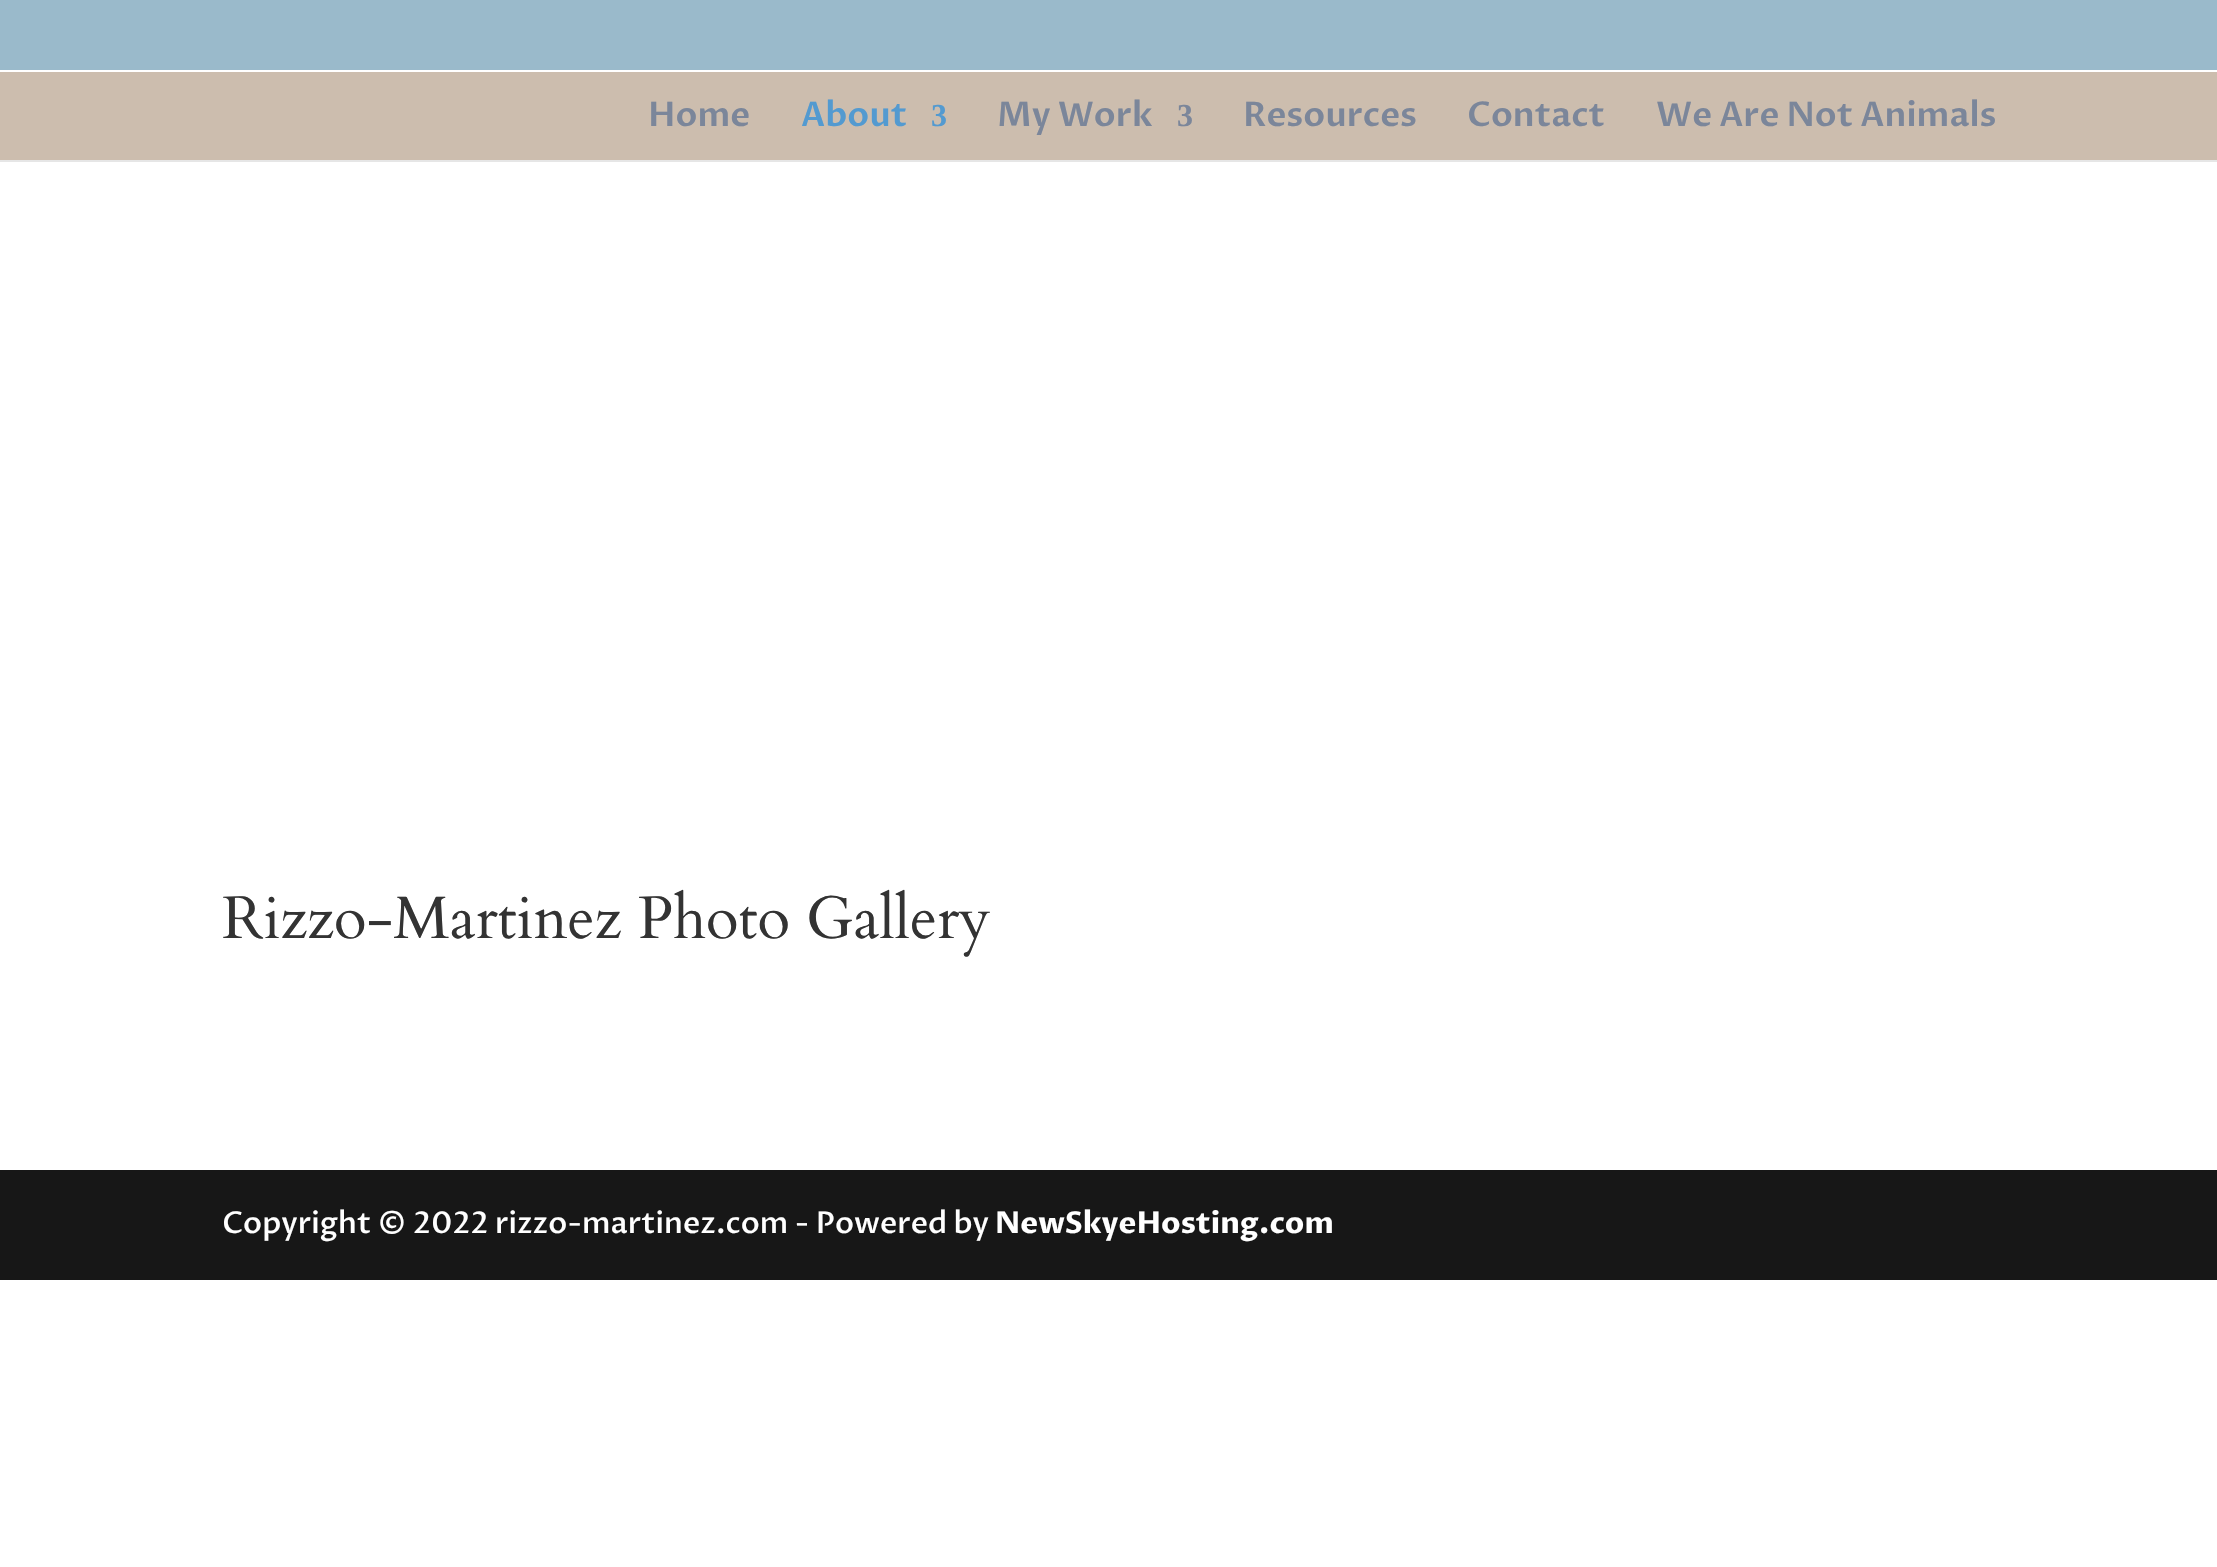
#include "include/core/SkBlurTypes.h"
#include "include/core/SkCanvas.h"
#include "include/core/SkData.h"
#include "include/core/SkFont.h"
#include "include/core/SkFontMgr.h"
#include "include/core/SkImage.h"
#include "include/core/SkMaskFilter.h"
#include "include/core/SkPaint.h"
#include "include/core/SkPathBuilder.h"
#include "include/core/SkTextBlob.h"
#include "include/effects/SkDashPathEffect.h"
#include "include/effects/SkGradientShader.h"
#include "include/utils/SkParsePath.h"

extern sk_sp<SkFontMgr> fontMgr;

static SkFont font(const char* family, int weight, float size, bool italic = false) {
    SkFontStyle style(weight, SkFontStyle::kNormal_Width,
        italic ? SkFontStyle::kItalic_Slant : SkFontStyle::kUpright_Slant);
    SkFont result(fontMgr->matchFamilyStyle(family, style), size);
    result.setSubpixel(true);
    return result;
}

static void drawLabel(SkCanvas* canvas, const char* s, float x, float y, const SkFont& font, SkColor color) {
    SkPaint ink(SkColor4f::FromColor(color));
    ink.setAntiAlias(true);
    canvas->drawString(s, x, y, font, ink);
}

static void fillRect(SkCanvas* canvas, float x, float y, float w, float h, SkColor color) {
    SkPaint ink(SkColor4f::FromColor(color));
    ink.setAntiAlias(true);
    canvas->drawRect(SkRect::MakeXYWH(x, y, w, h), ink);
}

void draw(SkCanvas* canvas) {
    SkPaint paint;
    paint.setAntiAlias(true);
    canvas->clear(0xFFFFFFFF);
    fillRect(canvas, 0, 0, 2217, 70, 0xFF9ABACB);
    fillRect(canvas, 0, 160, 2217, 2, 0xFFE6E6E6);
    fillRect(canvas, 0, 72, 2217, 88, 0xFFCCBDAE);
    SkFont font1 = font("Proza Libre", 600, 34);
    drawLabel(canvas, "Home", 648, 126, font1, 0xFF7B869A);
    drawLabel(canvas, "About", 801, 126, font1, 0xFF539AD0);
    SkFont font2 = font("Liberation Serif", 700, 32);
    drawLabel(canvas, "3", 931, 126, font2, 0xFF539AD0);
    drawLabel(canvas, "My Work", 997, 126, font1, 0xFF7B869A);
    drawLabel(canvas, "3", 1177, 126, font2, 0xFF7B869A);
    drawLabel(canvas, "Resources", 1243, 126, font1, 0xFF7B869A);
    drawLabel(canvas, "Contact", 1467, 126, font1, 0xFF7B869A);
    drawLabel(canvas, "We Are Not Animals", 1656, 126, font1, 0xFF7B869A);
    SkFont font3 = font("Cardo", 400, 60);
    drawLabel(canvas, "Rizzo-Martinez Photo Gallery", 222, 938, font3, 0xFF333333);
    fillRect(canvas, 0, 1170, 2217, 110, 0xFF171717);
    SkFont font4 = font("Proza Libre", 500, 30);
    drawLabel(canvas, "Copyright © 2022 rizzo-martinez.com - Powered by", 222, 1233, font4, 0xFFFFFFFF);
    SkFont font5 = font("Proza Libre", 700, 30);
    drawLabel(canvas, "NewSkyeHosting.com", 995, 1233, font5, 0xFFFFFFFF);
}
